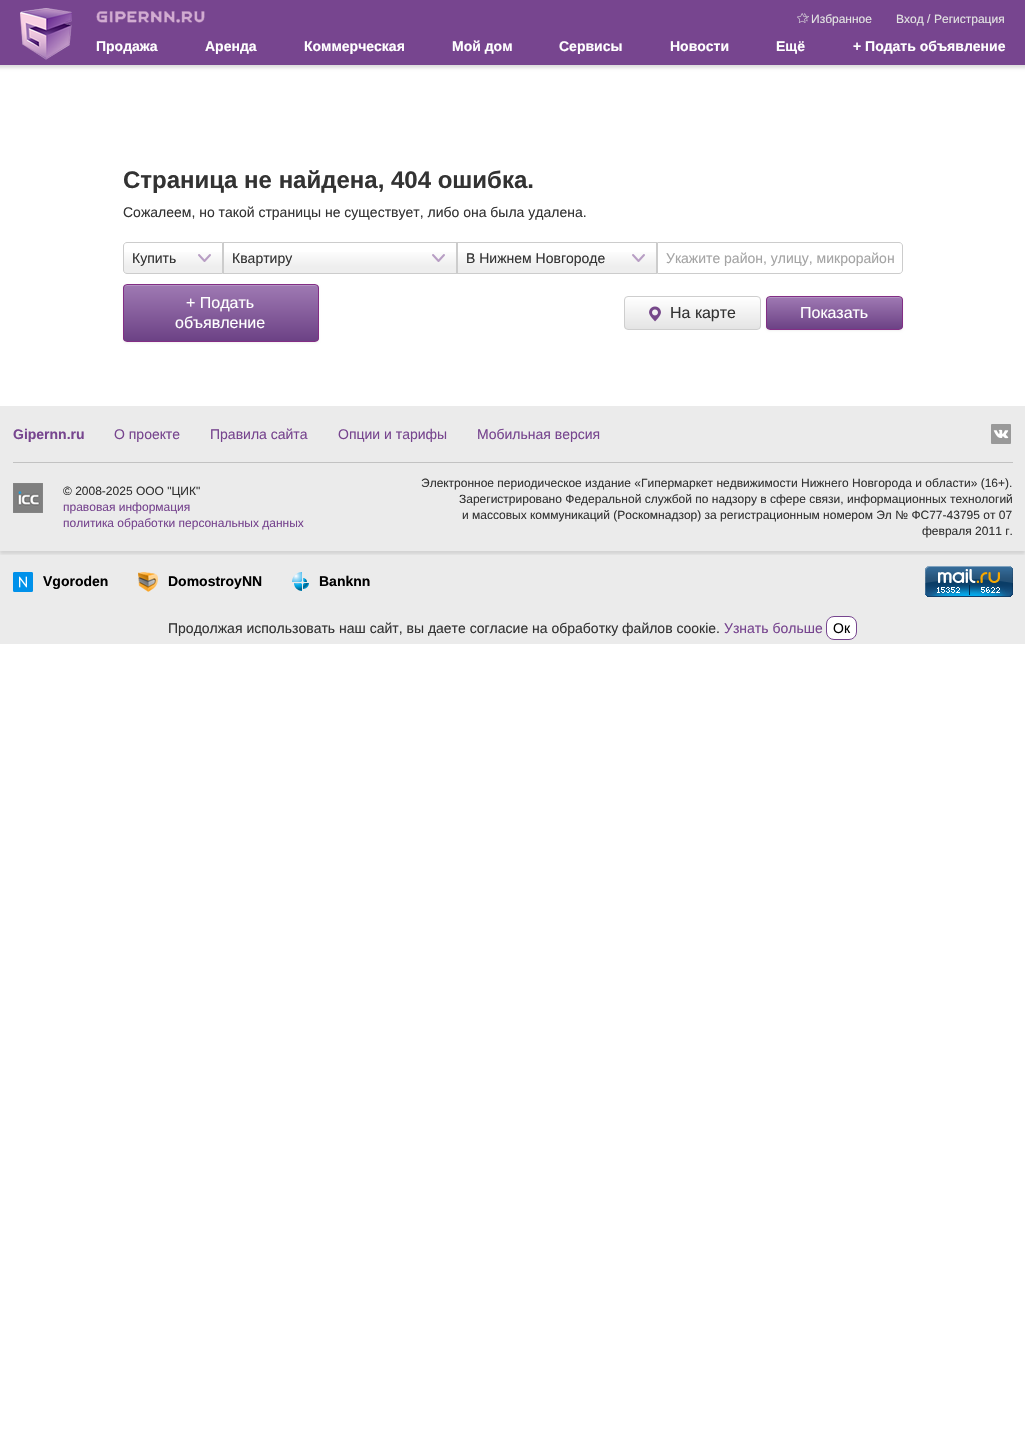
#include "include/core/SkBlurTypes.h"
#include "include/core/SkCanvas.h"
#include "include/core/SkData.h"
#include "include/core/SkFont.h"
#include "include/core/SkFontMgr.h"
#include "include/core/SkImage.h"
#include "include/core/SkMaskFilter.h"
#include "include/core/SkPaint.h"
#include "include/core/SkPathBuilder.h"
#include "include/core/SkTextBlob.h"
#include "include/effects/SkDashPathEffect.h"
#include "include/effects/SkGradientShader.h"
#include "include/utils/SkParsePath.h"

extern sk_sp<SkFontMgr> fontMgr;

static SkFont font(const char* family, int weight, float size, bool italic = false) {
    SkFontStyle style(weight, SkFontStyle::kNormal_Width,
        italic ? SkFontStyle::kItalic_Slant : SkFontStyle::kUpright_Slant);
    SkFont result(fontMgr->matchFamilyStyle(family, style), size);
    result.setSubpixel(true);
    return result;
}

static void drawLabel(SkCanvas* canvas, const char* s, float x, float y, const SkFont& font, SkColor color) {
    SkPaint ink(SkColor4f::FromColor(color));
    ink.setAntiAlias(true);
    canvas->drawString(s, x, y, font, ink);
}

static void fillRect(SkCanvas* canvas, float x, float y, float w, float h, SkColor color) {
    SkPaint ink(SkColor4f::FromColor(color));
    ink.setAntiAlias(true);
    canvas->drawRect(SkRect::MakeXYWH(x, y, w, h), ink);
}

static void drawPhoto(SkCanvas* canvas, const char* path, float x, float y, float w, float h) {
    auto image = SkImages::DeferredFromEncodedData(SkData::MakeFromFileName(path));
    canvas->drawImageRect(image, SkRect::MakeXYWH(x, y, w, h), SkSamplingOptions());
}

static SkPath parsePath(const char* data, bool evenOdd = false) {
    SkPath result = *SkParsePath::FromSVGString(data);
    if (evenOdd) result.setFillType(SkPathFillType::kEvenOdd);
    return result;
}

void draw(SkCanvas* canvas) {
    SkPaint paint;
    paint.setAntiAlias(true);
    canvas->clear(0xFFFFFFFF);
    paint.setColor(0x21010101);
    paint.setMaskFilter(SkMaskFilter::MakeBlur(kNormal_SkBlurStyle, 1.5f));
    canvas->drawRect(SkRect::MakeXYWH(-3, -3, 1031, 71), paint);
    paint.setMaskFilter(nullptr);
    fillRect(canvas, 0, 0, 1025, 65, 0xFF77458F);
    drawPhoto(canvas, "assets/img1.png", 20, 8, 52, 52);
    drawPhoto(canvas, "assets/img2.png", 96, 11, 109, 12);
    drawPhoto(canvas, "assets/img3.png", 797, 13, 12, 10);
    SkFont font1 = font("Liberation Sans", 400, 12);
    drawLabel(canvas, "Избранное", 811, 23, font1, 0xFFE2E2E2);
    drawLabel(canvas, "Вход /", 896, 23, font1, 0xFFE2E2E2);
    drawLabel(canvas, "Регистрация", 934, 23, font1, 0xFFE2E2E2);
    SkFont font2 = font("Liberation Sans", 700, 14);
    drawLabel(canvas, "Продажа", 96, 51, font2, 0xFFFFFFFF);
    drawLabel(canvas, "Аренда", 205, 51, font2, 0xFFFFFFFF);
    drawLabel(canvas, "Коммерческая", 304, 51, font2, 0xFFFFFFFF);
    drawLabel(canvas, "Мой дом", 452, 51, font2, 0xFFFFFFFF);
    drawLabel(canvas, "Сервисы", 559, 51, font2, 0xFFFFFFFF);
    drawLabel(canvas, "Новости", 670, 51, font2, 0xFFFFFFFF);
    drawLabel(canvas, "Ещё", 776, 51, font2, 0xFFFFFFFF);
    drawLabel(canvas, "+ Подать объявление", 853, 51, font2, 0xFFFFFFFF);
    SkFont font3 = font("Liberation Sans", 700, 24);
    drawLabel(canvas, "Страница не найдена, 404 ошибка.", 123, 188, font3, 0xFF333333);
    SkFont font4 = font("Liberation Sans", 400, 14);
    drawLabel(canvas, "Сожалеем, но такой страницы не существует, либо она была удалена.", 123, 217, font4, 0xFF333333);
    {
        const SkColor colors[] = {0xFFEEEEEE, 0xFFFFFFFF};
        const float stops[] = {0.2f, 0.8f};
        const SkPoint ends[] = {{173, 273}, {173, 243}};
        paint.setShader(SkGradientShader::MakeLinear(ends, colors, stops, 2, SkTileMode::kClamp));
        paint.setAlpha(255);
    }
    canvas->drawRect(SkRect::MakeXYWH(124, 252, 98, 21), paint);
    paint.setStroke(true);
    paint.setStrokeWidth(2);
    paint.setStrokeCap(SkPaint::kRound_Cap);
    paint.setStrokeJoin(SkPaint::kRound_Join);
    paint.setShader(nullptr);
    paint.setColor(0xFFB89EC4);
    canvas->drawPath(parsePath("M210 255L204.5 261L199 255"), paint);
    paint.setStrokeWidth(1);
    paint.setStrokeCap(SkPaint::kButt_Cap);
    paint.setStrokeJoin(SkPaint::kMiter_Join);
    paint.setColor(0xFFCCCCCC);
    canvas->drawPath(parsePath("M127 242.5H222.5V273.5H127C125 273.5 123.5 272 123.5 270V246C123.5 244 125 242.5 127 242.5Z"), paint);
    drawLabel(canvas, "Купить", 132, 263, font4, 0xFF333333);
    paint.setStroke(false);
    {
        const SkColor colors[] = {0xFFEEEEEE, 0xFFFFFFFF};
        const float stops[] = {0.2f, 0.8f};
        const SkPoint ends[] = {{340, 273}, {340, 243}};
        paint.setShader(SkGradientShader::MakeLinear(ends, colors, stops, 2, SkTileMode::kClamp));
        paint.setAlpha(255);
    }
    canvas->drawRect(SkRect::MakeXYWH(224, 252, 232, 21), paint);
    paint.setStroke(true);
    paint.setStrokeWidth(2);
    paint.setStrokeCap(SkPaint::kRound_Cap);
    paint.setStrokeJoin(SkPaint::kRound_Join);
    paint.setShader(nullptr);
    paint.setColor(0xFFB89EC4);
    canvas->drawPath(parsePath("M444 255L438.5 261L433 255"), paint);
    paint.setStrokeWidth(1);
    paint.setStrokeCap(SkPaint::kButt_Cap);
    paint.setStrokeJoin(SkPaint::kMiter_Join);
    paint.setColor(0xFFCCCCCC);
    canvas->drawRect(SkRect::MakeXYWH(223.5f, 242.5f, 233, 31), paint);
    drawLabel(canvas, "Квартиру", 232, 263, font4, 0xFF333333);
    paint.setStroke(false);
    {
        const SkColor colors[] = {0xFFEEEEEE, 0xFFFFFFFF};
        const float stops[] = {0.2f, 0.8f};
        const SkPoint ends[] = {{557, 273}, {557, 243}};
        paint.setShader(SkGradientShader::MakeLinear(ends, colors, stops, 2, SkTileMode::kClamp));
        paint.setAlpha(255);
    }
    canvas->drawRect(SkRect::MakeXYWH(458, 252, 198, 21), paint);
    paint.setStroke(true);
    paint.setStrokeWidth(2);
    paint.setStrokeCap(SkPaint::kRound_Cap);
    paint.setStrokeJoin(SkPaint::kRound_Join);
    paint.setShader(nullptr);
    paint.setColor(0xFFB89EC4);
    canvas->drawPath(parsePath("M644 255L638.5 261L633 255"), paint);
    paint.setStrokeWidth(1);
    paint.setStrokeCap(SkPaint::kButt_Cap);
    paint.setStrokeJoin(SkPaint::kMiter_Join);
    paint.setColor(0xFFCCCCCC);
    canvas->drawRect(SkRect::MakeXYWH(457.5f, 242.5f, 199, 31), paint);
    drawLabel(canvas, "В Нижнем Новгороде", 466, 263, font4, 0xFF333333);
    canvas->drawPath(parsePath("M657.5 242.5H899C901 242.5 902.5 244 902.5 246V270C902.5 272 901 273.5 899 273.5H657.5Z"), paint);
    drawLabel(canvas, "Укажите район, улицу, микрорайон", 666, 263, font4, 0xFFA4A4A4);
    paint.setStroke(false);
    paint.setColor(0x0D000000);
    paint.setMaskFilter(SkMaskFilter::MakeBlur(kNormal_SkBlurStyle, 1));
    canvas->drawRoundRect(SkRect::MakeXYWH(123, 285, 196, 58), 4, 4, paint);
    paint.setMaskFilter(nullptr);
    canvas->save();
    canvas->clipPath(parsePath("M127 284H315C317 284 319 286 319 288V338C319 340 317 342 315 342H127C125 342 123 340 123 338V288C123 286 125 284 127 284Z"), true);
    {
        const SkColor colors[] = {0xFF9F79B3, 0xFF6C4285};
        const float stops[] = {0, 1};
        const SkPoint ends[] = {{221, 285}, {221, 341}};
        paint.setShader(SkGradientShader::MakeLinear(ends, colors, stops, 2, SkTileMode::kClamp));
        paint.setAlpha(255);
    }
    canvas->drawRect(SkRect::MakeXYWH(123, 285, 196, 56), paint);
    canvas->restore();
    paint.setShader(nullptr);
    paint.setColor(0xFFB294C2);
    canvas->drawPath(parsePath("M127 286H315C317 286 318 287 318 289C318 287 317 285 315 285H127C125 285 124 287 124 289C124 287 125 286 127 286Z"), paint);
    paint.setStroke(true);
    paint.setColor(0xFF832E85);
    canvas->drawRoundRect(SkRect::MakeXYWH(123.5f, 284.5f, 195, 57), 3.5f, 3.5f, paint);
    SkFont font5 = font("Liberation Sans", 400, 16);
    drawLabel(canvas, "+ Подать", 186, 308, font5, 0xFFFFFFFF);
    drawLabel(canvas, "объявление", 175, 328, font5, 0xFFFFFFFF);
    canvas->save();
    canvas->clipPath(parsePath("M628 296H757C759 296 761 298 761 300V326C761 328 759 330 757 330H628C626 330 624 328 624 326V300C624 298 626 296 628 296Z"), true);
    paint.setStroke(false);
    {
        const SkColor colors[] = {0xFFFFFFFF, 0xFFE4E4E4};
        const float stops[] = {0, 1};
        const SkPoint ends[] = {{693, 297}, {693, 329}};
        paint.setShader(SkGradientShader::MakeLinear(ends, colors, stops, 2, SkTileMode::kClamp));
        paint.setAlpha(255);
    }
    canvas->drawRect(SkRect::MakeXYWH(624, 297, 137, 32), paint);
    canvas->restore();
    paint.setStroke(true);
    paint.setShader(nullptr);
    paint.setColor(0xFFCECECE);
    canvas->drawRoundRect(SkRect::MakeXYWH(624.5f, 296.5f, 136, 33), 3.5f, 3.5f, paint);
    drawPhoto(canvas, "assets/img4.png", 649, 306, 12, 16);
    drawLabel(canvas, "На карте", 670, 318, font5, 0xFF333333);
    paint.setStroke(false);
    paint.setColor(0x0D000000);
    paint.setMaskFilter(SkMaskFilter::MakeBlur(kNormal_SkBlurStyle, 1));
    canvas->drawRoundRect(SkRect::MakeXYWH(766, 297, 137, 34), 4, 4, paint);
    paint.setMaskFilter(nullptr);
    canvas->save();
    canvas->clipPath(parsePath("M770 296H899C901 296 903 298 903 300V326C903 328 901 330 899 330H770C768 330 766 328 766 326V300C766 298 768 296 770 296Z"), true);
    {
        const SkColor colors[] = {0xFF9F79B3, 0xFF6C4285};
        const float stops[] = {0, 1};
        const SkPoint ends[] = {{835, 297}, {835, 329}};
        paint.setShader(SkGradientShader::MakeLinear(ends, colors, stops, 2, SkTileMode::kClamp));
        paint.setAlpha(255);
    }
    canvas->drawRect(SkRect::MakeXYWH(766, 297, 137, 32), paint);
    canvas->restore();
    paint.setShader(nullptr);
    paint.setColor(0xFFB193C1);
    canvas->drawPath(parsePath("M770 298H899C901 298 902 299 902 301C902 299 902 297 900 297H769C767 297 767 299 767 301C767 299 768 298 770 298Z"), paint);
    paint.setStroke(true);
    paint.setColor(0xFF832E85);
    canvas->drawRoundRect(SkRect::MakeXYWH(766.5f, 296.5f, 136, 33), 3.5f, 3.5f, paint);
    drawLabel(canvas, "Показать", 800, 318, font5, 0xFFFFFFFF);
    fillRect(canvas, 0, 406, 1025, 238, 0xFFEBEBEB);
    canvas->save();
    canvas->clipRect(SkRect::MakeXYWH(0, 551, 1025, 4));
    paint.setStroke(false);
    paint.setColor(0x1A000000);
    paint.setMaskFilter(SkMaskFilter::MakeBlur(kNormal_SkBlurStyle, 1.5f));
    canvas->drawRect(SkRect::MakeXYWH(0, 409, 1025, 145), paint);
    paint.setMaskFilter(nullptr);
    canvas->restore();
    fillRect(canvas, 13, 462, 1000, 1, 0xFFC2C2C2);
    drawLabel(canvas, "Gipernn.ru", 13, 439, font2, 0xFF77458F);
    drawLabel(canvas, "О проекте", 114, 439, font4, 0xFF77458F);
    drawLabel(canvas, "Правила сайта", 210, 439, font4, 0xFF77458F);
    drawLabel(canvas, "Опции и тарифы", 338, 439, font4, 0xFF77458F);
    drawLabel(canvas, "Мобильная версия", 477, 439, font4, 0xFF77458F);
    drawPhoto(canvas, "assets/img5.png", 991, 424, 20, 20);
    drawPhoto(canvas, "assets/img6.png", 13, 483, 30, 30);
    drawLabel(canvas, "© 2008-2025 ООО \"ЦИК\"", 63, 495, font1, 0xFF333333);
    drawLabel(canvas, "правовая информация", 63, 511, font1, 0xFF77458F);
    drawLabel(canvas, "политика обработки персональных данных", 63, 527, font1, 0xFF77458F);
    drawLabel(canvas, "Электронное периодическое издание «Гипермаркет недвижимости Нижнего Новгорода и области» (16+).", 421, 487, font1, 0xFF333333);
    drawLabel(canvas, "Зарегистрировано Федеральной службой по надзору в сфере связи, информационных технологий", 459, 503, font1, 0xFF333333);
    drawLabel(canvas, "и массовых коммуникаций (Роскомнадзор) за регистрационным номером Эл № ФС77-43795 от 07", 462, 519, font1, 0xFF333333);
    drawLabel(canvas, "февраля 2011 г.", 922, 535, font1, 0xFF333333);
    drawPhoto(canvas, "assets/img7.png", 13, 572, 20, 20);
    drawLabel(canvas, "Vgoroden", 43, 586, font2, 0xFF000000);
    drawPhoto(canvas, "assets/img8.png", 138, 572, 20, 20);
    drawLabel(canvas, "DomostroyNN", 168, 586, font2, 0xFF000000);
    drawPhoto(canvas, "assets/img9.png", 292, 572, 17, 19);
    drawLabel(canvas, "Banknn", 319, 586, font2, 0xFF000000);
    drawPhoto(canvas, "assets/img10.png", 925, 566, 88, 31);
    drawLabel(canvas, "Продолжая использовать наш сайт, вы даете согласие на обработку файлов сoокіе.", 168, 633, font4, 0xFF333333);
    drawLabel(canvas, "Узнать больше", 724, 633, font4, 0xFF77458F);
    paint.setColor(0xFFFFFFFF);
    canvas->drawRoundRect(SkRect::MakeXYWH(826.5f, 616.5f, 30, 23), 7.5f, 7.5f, paint);
    paint.setStroke(true);
    paint.setColor(0xFF77458F);
    canvas->drawRoundRect(SkRect::MakeXYWH(826.5f, 616.5f, 30, 23), 7.5f, 7.5f, paint);
    drawLabel(canvas, "Ок", 833, 633, font4, 0xFF000000);
}
